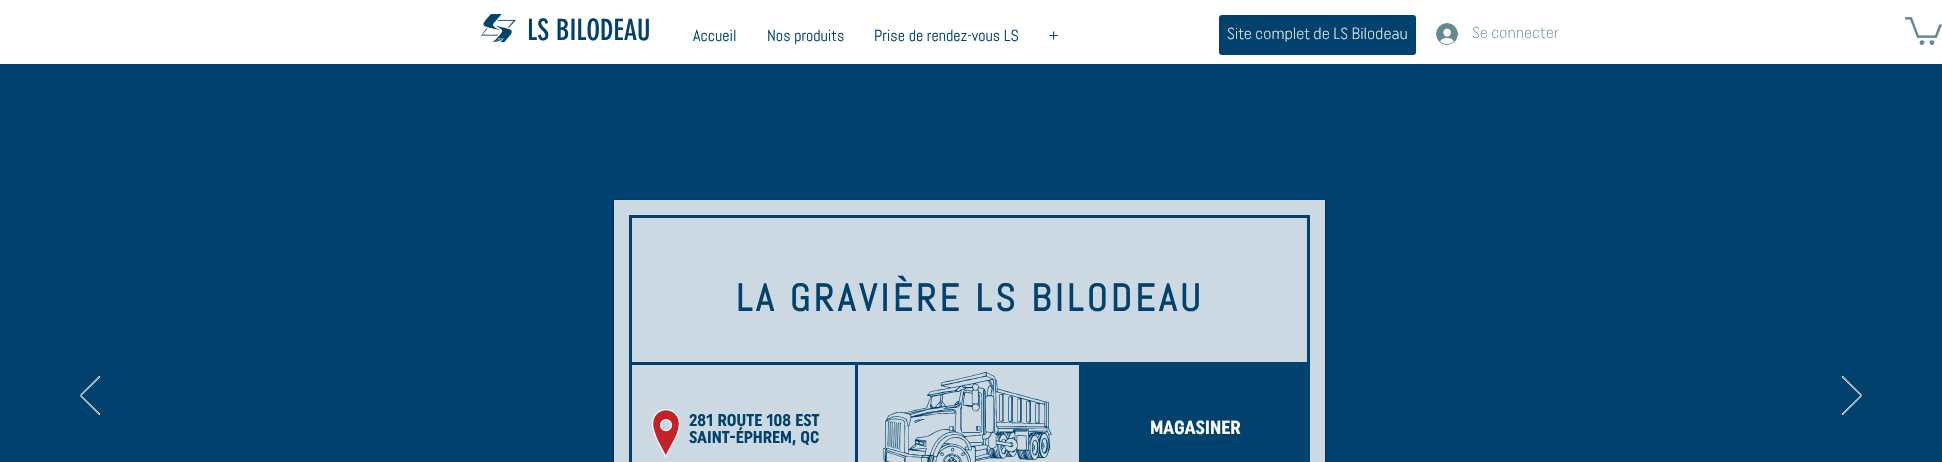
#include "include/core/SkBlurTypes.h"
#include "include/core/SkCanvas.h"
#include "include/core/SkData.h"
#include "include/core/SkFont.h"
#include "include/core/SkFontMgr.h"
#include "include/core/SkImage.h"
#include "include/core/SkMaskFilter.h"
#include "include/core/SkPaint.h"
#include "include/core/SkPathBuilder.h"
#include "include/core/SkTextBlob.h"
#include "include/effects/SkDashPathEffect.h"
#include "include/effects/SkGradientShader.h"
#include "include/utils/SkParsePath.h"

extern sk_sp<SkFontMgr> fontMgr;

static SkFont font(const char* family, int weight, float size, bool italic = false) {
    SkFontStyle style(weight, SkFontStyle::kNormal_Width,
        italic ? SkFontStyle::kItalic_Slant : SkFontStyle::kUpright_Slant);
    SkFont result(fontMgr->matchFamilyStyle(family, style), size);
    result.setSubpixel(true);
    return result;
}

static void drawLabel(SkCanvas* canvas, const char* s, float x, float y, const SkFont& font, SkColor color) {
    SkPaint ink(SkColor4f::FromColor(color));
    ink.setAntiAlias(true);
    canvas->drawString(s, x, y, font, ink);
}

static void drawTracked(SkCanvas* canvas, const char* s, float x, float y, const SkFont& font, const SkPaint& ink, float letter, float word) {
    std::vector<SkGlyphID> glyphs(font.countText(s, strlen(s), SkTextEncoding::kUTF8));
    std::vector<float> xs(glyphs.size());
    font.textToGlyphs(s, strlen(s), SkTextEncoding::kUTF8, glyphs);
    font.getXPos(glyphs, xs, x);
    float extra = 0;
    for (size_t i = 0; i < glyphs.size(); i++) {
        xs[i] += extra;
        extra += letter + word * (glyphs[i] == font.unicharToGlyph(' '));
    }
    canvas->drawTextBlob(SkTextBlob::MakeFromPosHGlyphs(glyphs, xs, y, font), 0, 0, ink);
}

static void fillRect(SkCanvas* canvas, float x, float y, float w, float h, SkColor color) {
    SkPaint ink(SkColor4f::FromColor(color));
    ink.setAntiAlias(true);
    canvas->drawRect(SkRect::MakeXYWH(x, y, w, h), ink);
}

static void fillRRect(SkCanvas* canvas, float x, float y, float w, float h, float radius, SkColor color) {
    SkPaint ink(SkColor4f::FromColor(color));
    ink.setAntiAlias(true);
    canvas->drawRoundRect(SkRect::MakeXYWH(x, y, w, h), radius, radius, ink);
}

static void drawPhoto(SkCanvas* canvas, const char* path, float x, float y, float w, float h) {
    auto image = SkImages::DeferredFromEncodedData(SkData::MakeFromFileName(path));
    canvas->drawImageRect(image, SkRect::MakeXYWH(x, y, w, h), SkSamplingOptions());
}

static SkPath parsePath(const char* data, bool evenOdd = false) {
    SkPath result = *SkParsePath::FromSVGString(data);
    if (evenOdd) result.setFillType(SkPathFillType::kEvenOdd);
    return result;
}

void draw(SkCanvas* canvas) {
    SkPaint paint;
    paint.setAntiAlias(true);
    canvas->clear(0xFF00426D);
    fillRect(canvas, 0, 0, 1942, 64, 0xFFFFFFFF);
    drawPhoto(canvas, "assets/img1.png", 481, 14, 35, 28);
    SkFont font1 = font("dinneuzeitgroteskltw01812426", 400, 29);
    drawLabel(canvas, "LS BILODEAU", 527, 40, font1, 0xFF00426D);
    drawPhoto(canvas, "assets/img2.png", 1436, 23, 22, 22);
    SkFont font2 = font("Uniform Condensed", 300, 16);
    drawLabel(canvas, "Se connecter", 1472, 38, font2, 0xFF638994);
    drawPhoto(canvas, "assets/img3.png", 1905, 17, 37, 28);
    SkFont font3 = font("Abel", 400, 16);
    drawLabel(canvas, "Accueil", 693, 41, font3, 0xFF00426D);
    drawLabel(canvas, "Nos produits", 767, 41, font3, 0xFF00426D);
    drawLabel(canvas, "Prise de rendez-vous LS", 874, 41, font3, 0xFF00426D);
    drawLabel(canvas, "+", 1049, 41, font3, 0xFF00426D);
    fillRRect(canvas, 1219, 15, 197, 40, 3, 0xFF00426D);
    drawLabel(canvas, "Site complet de LS Bilodeau", 1227, 39, font2, 0xFFFFFFFF);
    canvas->save();
    canvas->clipRect(SkRect::MakeXYWH(80, 376, 20, 40));
    paint.setStroke(true);
    paint.setStrokeWidth(1);
    paint.setColor(0xFFEDEDEE);
    canvas->drawPath(parsePath("M99.5 415L80 395.5L99.5 376L100 377L81 395.5L100 414Z"), paint);
    canvas->restore();
    paint.setStroke(false);
    paint.setColor(0x80000000);
    paint.setMaskFilter(SkMaskFilter::MakeBlur(kNormal_SkBlurStyle, 1.5f));
    canvas->drawRect(SkRect::MakeXYWH(614, 201, 711, 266), paint);
    paint.setMaskFilter(nullptr);
    fillRect(canvas, 614, 200, 711, 262, 0xFFCCD9E2);
    paint.setStroke(true);
    paint.setStrokeWidth(3);
    paint.setColor(0xFF00426D);
    canvas->drawRect(SkRect::MakeXYWH(630.5f, 216.5f, 678, 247), paint);
    SkFont font4 = font("Abel", 700, 38);
    paint.setStroke(false);
    drawTracked(canvas, "LA GRAVIÈRE LS BILODEAU", 736, 311, font4, paint, 3.8f, 0);
    fillRect(canvas, 632, 362, 677, 3, 0xFF00426D);
    drawPhoto(canvas, "assets/img4.png", 652, 409, 28, 49);
    SkFont font5 = font("Uniform Condensed", 700, 17);
    drawLabel(canvas, "281 ROUTE 108 EST", 689, 426, font5, 0xFF00426D);
    drawLabel(canvas, "SAINT-ÉPHREM, QC", 689, 443, font5, 0xFF00426D);
    drawPhoto(canvas, "assets/img5.png", 883, 372, 169, 90);
    fillRect(canvas, 1079, 364, 3, 98, 0xFF00426D);
    fillRect(canvas, 1082, 365, 225, 97, 0xFF00426D);
    SkFont font6 = font("Uniform Condensed", 700, 19);
    drawLabel(canvas, "MAGASINER", 1150, 434, font6, 0xFFFFFFFF);
    fillRect(canvas, 855, 364, 3, 98, 0xFF00426D);
    canvas->save();
    canvas->clipRect(SkRect::MakeXYWH(1842, 376, 20, 40));
    paint.setStroke(true);
    paint.setStrokeWidth(1);
    paint.setColor(0xFFEDEDEE);
    canvas->drawPath(parsePath("M1842.5 415L1862 395.5L1842.5 376L1842 377L1861 395.5L1842 414Z"), paint);
    canvas->restore();
}
